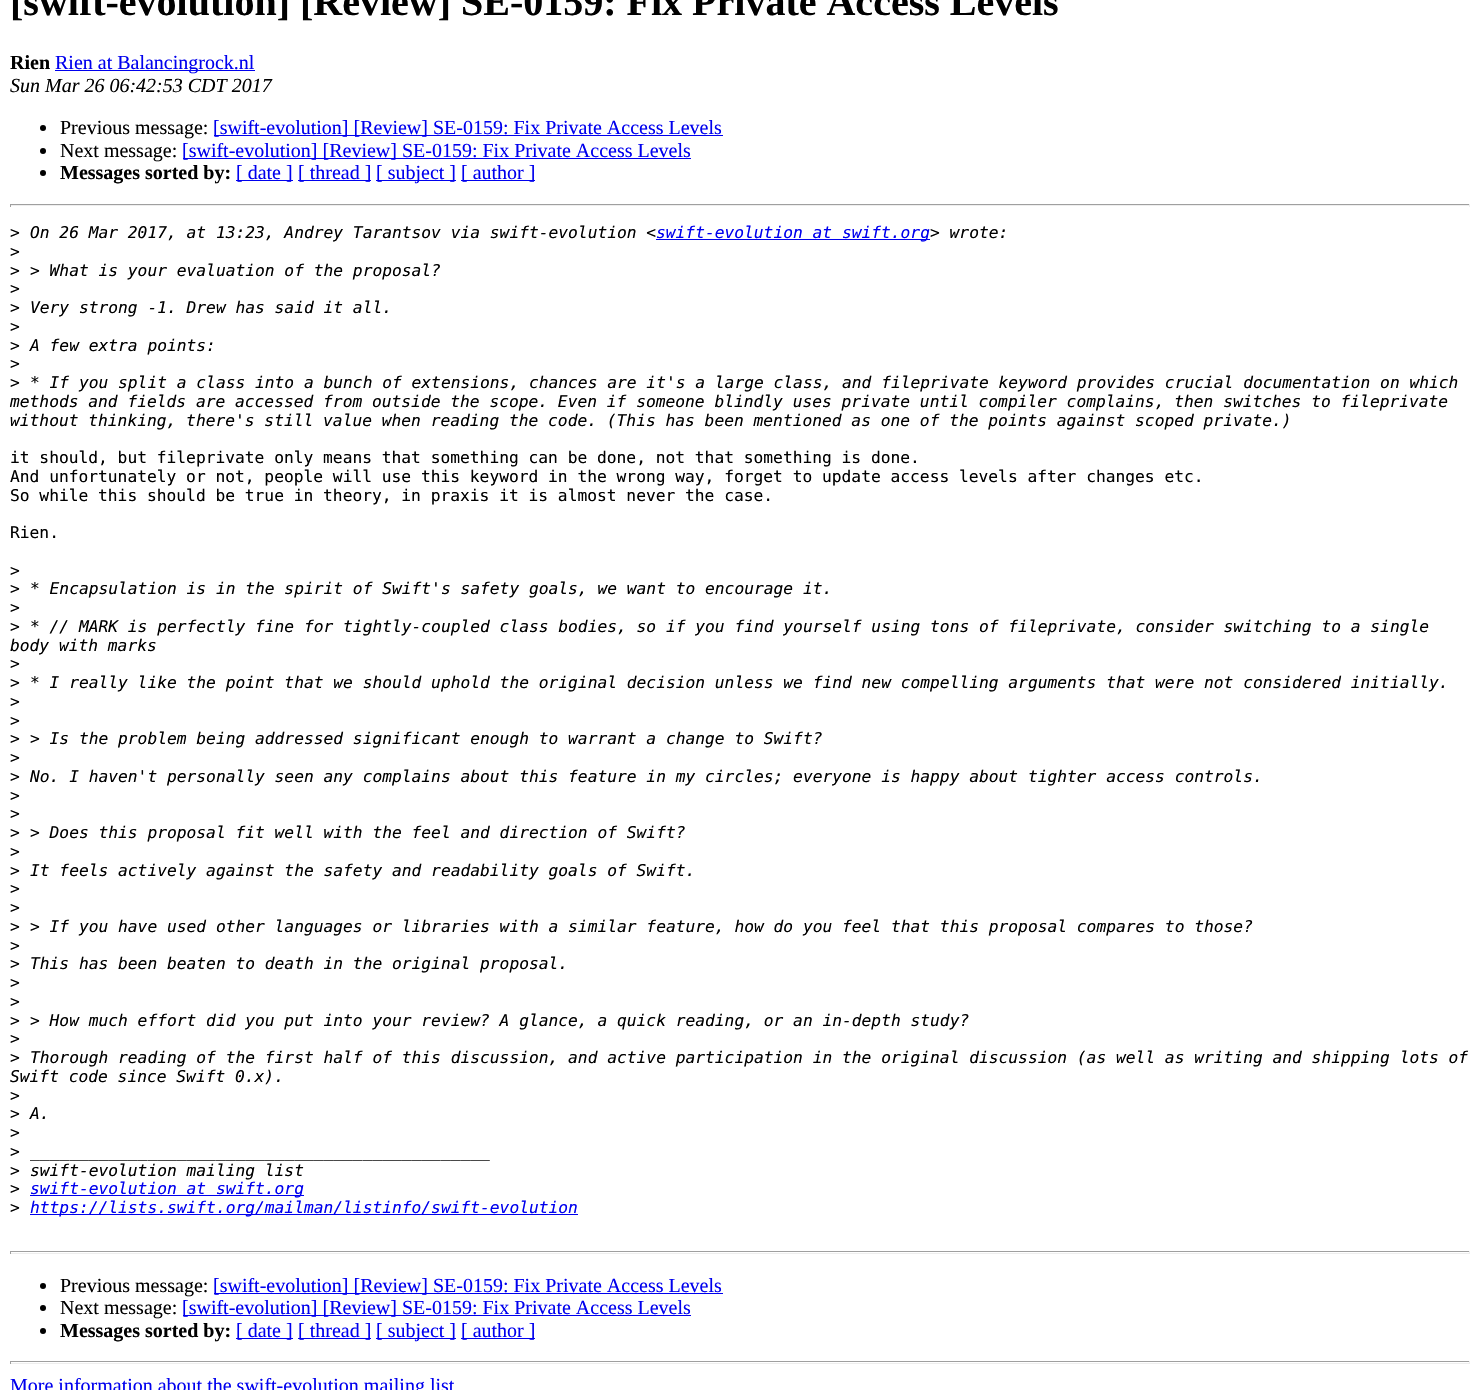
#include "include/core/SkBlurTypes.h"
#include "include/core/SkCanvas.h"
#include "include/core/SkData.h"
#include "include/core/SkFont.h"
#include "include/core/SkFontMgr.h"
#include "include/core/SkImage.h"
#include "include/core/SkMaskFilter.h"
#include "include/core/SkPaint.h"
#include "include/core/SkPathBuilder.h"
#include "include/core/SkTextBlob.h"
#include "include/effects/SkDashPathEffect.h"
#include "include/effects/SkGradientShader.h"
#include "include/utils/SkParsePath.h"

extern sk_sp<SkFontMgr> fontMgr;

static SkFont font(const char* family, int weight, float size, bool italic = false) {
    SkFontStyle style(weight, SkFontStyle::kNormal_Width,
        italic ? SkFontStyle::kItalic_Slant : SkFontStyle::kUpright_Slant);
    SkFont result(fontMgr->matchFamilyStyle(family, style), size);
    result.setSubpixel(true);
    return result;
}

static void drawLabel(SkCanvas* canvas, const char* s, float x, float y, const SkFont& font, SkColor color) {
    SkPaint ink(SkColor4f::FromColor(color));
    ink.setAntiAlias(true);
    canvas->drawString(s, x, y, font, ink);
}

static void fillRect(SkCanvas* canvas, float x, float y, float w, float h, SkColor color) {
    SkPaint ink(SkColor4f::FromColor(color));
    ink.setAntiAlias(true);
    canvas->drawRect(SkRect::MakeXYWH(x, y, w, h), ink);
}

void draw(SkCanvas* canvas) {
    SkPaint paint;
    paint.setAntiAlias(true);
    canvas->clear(0xFFFFFFFF);
    SkFont font1 = font("Liberation Serif", 700, 40);
    drawLabel(canvas, "[swift-evolution] [Review] SE-0159: Fix Private Access Levels", 10, 15, font1, 0xFF000000);
    SkFont font2 = font("Liberation Serif", 700, 20);
    drawLabel(canvas, "Rien", 10, 69, font2, 0xFF000000);
    fillRect(canvas, 55, 70, 200, 1, 0xFF0000EE);
    SkFont font3 = font("Liberation Serif", 400, 20);
    drawLabel(canvas, "Rien at Balancingrock.nl", 55, 69, font3, 0xFF0000EE);
    SkFont font4 = font("Liberation Serif", 400, 20, true);
    drawLabel(canvas, "Sun Mar 26 06:42:53 CDT 2017", 10, 92, font4, 0xFF000000);
    paint.setColor(0xFF000000);
    canvas->drawCircle(43, 128, 3, paint);
    drawLabel(canvas, "Previous message:", 60, 134, font3, 0xFF000000);
    fillRect(canvas, 214, 135, 509, 1, 0xFF0000EE);
    drawLabel(canvas, "[swift-evolution] [Review] SE-0159: Fix Private Access Levels", 213, 134, font3, 0xFF0000EE);
    canvas->drawCircle(43, 151, 3, paint);
    drawLabel(canvas, "Next message:", 60, 157, font3, 0xFF000000);
    fillRect(canvas, 183, 158, 508, 1, 0xFF0000EE);
    drawLabel(canvas, "[swift-evolution] [Review] SE-0159: Fix Private Access Levels", 182, 157, font3, 0xFF0000EE);
    canvas->drawCircle(43, 173, 3, paint);
    drawLabel(canvas, "Messages sorted by:", 60, 179, font2, 0xFF000000);
    fillRect(canvas, 236, 180, 57, 1, 0xFF0000EE);
    drawLabel(canvas, "[ date ]", 236, 179, font3, 0xFF0000EE);
    fillRect(canvas, 298, 180, 73, 1, 0xFF0000EE);
    drawLabel(canvas, "[ thread ]", 298, 179, font3, 0xFF0000EE);
    fillRect(canvas, 376, 180, 80, 1, 0xFF0000EE);
    drawLabel(canvas, "[ subject ]", 376, 179, font3, 0xFF0000EE);
    fillRect(canvas, 461, 180, 74, 1, 0xFF0000EE);
    drawLabel(canvas, "[ author ]", 461, 179, font3, 0xFF0000EE);
    fillRect(canvas, 10, 204, 1460, 1, 0xFF9F9F9F);
    fillRect(canvas, 1469, 204, 1, 3, 0xFFEEEEEE);
    fillRect(canvas, 10, 205, 1460, 1, 0xFFEEEEEE);
    fillRect(canvas, 10, 204, 1, 3, 0xFF9F9F9F);
    SkFont font5 = font("DejaVu Sans Mono", 400, 16.25f);
    drawLabel(canvas, ">", 10, 238, font5, 0xFF000000);
    SkFont font6 = font("DejaVu Sans Mono", 400, 16.25f, true);
    drawLabel(canvas, "On 26 Mar 2017, at 13:23, Andrey Tarantsov via swift-evolution <", 30, 238, font6, 0xFF000000);
    fillRect(canvas, 656, 239, 274, 1, 0xFF0000EE);
    drawLabel(canvas, "swift-evolution at swift.org", 656, 238, font6, 0xFF0000EE);
    drawLabel(canvas, "> wrote:", 930, 238, font6, 0xFF000000);
    drawLabel(canvas, ">", 10, 257, font5, 0xFF000000);
    drawLabel(canvas, ">", 10, 276, font5, 0xFF000000);
    drawLabel(canvas, "> What is your evaluation of the proposal?", 30, 276, font6, 0xFF000000);
    drawLabel(canvas, ">", 10, 294, font5, 0xFF000000);
    drawLabel(canvas, ">", 10, 313, font5, 0xFF000000);
    drawLabel(canvas, "Very strong -1. Drew has said it all.", 30, 313, font6, 0xFF000000);
    drawLabel(canvas, ">", 10, 332, font5, 0xFF000000);
    drawLabel(canvas, ">", 10, 351, font5, 0xFF000000);
    drawLabel(canvas, "A few extra points:", 30, 351, font6, 0xFF000000);
    drawLabel(canvas, ">", 10, 369, font5, 0xFF000000);
    drawLabel(canvas, ">", 10, 388, font5, 0xFF000000);
    drawLabel(canvas, "* If you split a class into a bunch of extensions, chances are it's a large class, and fileprivate keyword provides crucial documentation on which", 30, 388, font6, 0xFF000000);
    drawLabel(canvas, "methods and fields are accessed from outside the scope. Even if someone blindly uses private until compiler complains, then switches to fileprivate", 10, 407, font6, 0xFF000000);
    drawLabel(canvas, "without thinking, there's still value when reading the code. (This has been mentioned as one of the points against scoped private.)", 10, 426, font6, 0xFF000000);
    drawLabel(canvas, "it should, but fileprivate only means that something can be done, not that something is done.", 10, 463, font5, 0xFF000000);
    drawLabel(canvas, "And unfortunately or not, people will use this keyword in the wrong way, forget to update access levels after changes etc.", 10, 482, font5, 0xFF000000);
    drawLabel(canvas, "So while this should be true in theory, in praxis it is almost never the case.", 10, 501, font5, 0xFF000000);
    drawLabel(canvas, "Rien.", 10, 538, font5, 0xFF000000);
    drawLabel(canvas, ">", 10, 576, font5, 0xFF000000);
    drawLabel(canvas, ">", 10, 594, font5, 0xFF000000);
    drawLabel(canvas, "* Encapsulation is in the spirit of Swift's safety goals, we want to encourage it.", 30, 594, font6, 0xFF000000);
    drawLabel(canvas, ">", 10, 613, font5, 0xFF000000);
    drawLabel(canvas, ">", 10, 632, font5, 0xFF000000);
    drawLabel(canvas, "* // MARK is perfectly fine for tightly-coupled class bodies, so if you find yourself using tons of fileprivate, consider switching to a single", 30, 632, font6, 0xFF000000);
    drawLabel(canvas, "body with marks", 10, 651, font6, 0xFF000000);
    drawLabel(canvas, ">", 10, 669, font5, 0xFF000000);
    drawLabel(canvas, ">", 10, 688, font5, 0xFF000000);
    drawLabel(canvas, "* I really like the point that we should uphold the original decision unless we find new compelling arguments that were not considered initially.", 30, 688, font6, 0xFF000000);
    drawLabel(canvas, ">", 10, 707, font5, 0xFF000000);
    drawLabel(canvas, ">", 10, 726, font5, 0xFF000000);
    drawLabel(canvas, ">", 10, 744, font5, 0xFF000000);
    drawLabel(canvas, "> Is the problem being addressed significant enough to warrant a change to Swift?", 30, 744, font6, 0xFF000000);
    drawLabel(canvas, ">", 10, 763, font5, 0xFF000000);
    drawLabel(canvas, ">", 10, 782, font5, 0xFF000000);
    drawLabel(canvas, "No. I haven't personally seen any complains about this feature in my circles; everyone is happy about tighter access controls.", 30, 782, font6, 0xFF000000);
    drawLabel(canvas, ">", 10, 801, font5, 0xFF000000);
    drawLabel(canvas, ">", 10, 819, font5, 0xFF000000);
    drawLabel(canvas, ">", 10, 838, font5, 0xFF000000);
    drawLabel(canvas, "> Does this proposal fit well with the feel and direction of Swift?", 30, 838, font6, 0xFF000000);
    drawLabel(canvas, ">", 10, 857, font5, 0xFF000000);
    drawLabel(canvas, ">", 10, 876, font5, 0xFF000000);
    drawLabel(canvas, "It feels actively against the safety and readability goals of Swift.", 30, 876, font6, 0xFF000000);
    drawLabel(canvas, ">", 10, 894, font5, 0xFF000000);
    drawLabel(canvas, ">", 10, 913, font5, 0xFF000000);
    drawLabel(canvas, ">", 10, 932, font5, 0xFF000000);
    drawLabel(canvas, "> If you have used other languages or libraries with a similar feature, how do you feel that this proposal compares to those?", 30, 932, font6, 0xFF000000);
    drawLabel(canvas, ">", 10, 951, font5, 0xFF000000);
    drawLabel(canvas, ">", 10, 969, font5, 0xFF000000);
    drawLabel(canvas, "This has been beaten to death in the original proposal.", 30, 969, font6, 0xFF000000);
    drawLabel(canvas, ">", 10, 988, font5, 0xFF000000);
    drawLabel(canvas, ">", 10, 1007, font5, 0xFF000000);
    drawLabel(canvas, ">", 10, 1026, font5, 0xFF000000);
    drawLabel(canvas, "> How much effort did you put into your review? A glance, a quick reading, or an in-depth study?", 30, 1026, font6, 0xFF000000);
    drawLabel(canvas, ">", 10, 1044, font5, 0xFF000000);
    drawLabel(canvas, ">", 10, 1063, font5, 0xFF000000);
    drawLabel(canvas, "Thorough reading of the first half of this discussion, and active participation in the original discussion (as well as writing and shipping lots of", 30, 1063, font6, 0xFF000000);
    drawLabel(canvas, "Swift code since Swift 0.x).", 10, 1082, font6, 0xFF000000);
    drawLabel(canvas, ">", 10, 1101, font5, 0xFF000000);
    drawLabel(canvas, ">", 10, 1119, font5, 0xFF000000);
    drawLabel(canvas, "A.", 30, 1119, font6, 0xFF000000);
    drawLabel(canvas, ">", 10, 1138, font5, 0xFF000000);
    drawLabel(canvas, ">", 10, 1157, font5, 0xFF000000);
    drawLabel(canvas, "_______________________________________________", 30, 1157, font6, 0xFF000000);
    drawLabel(canvas, ">", 10, 1176, font5, 0xFF000000);
    drawLabel(canvas, "swift-evolution mailing list", 30, 1176, font6, 0xFF000000);
    drawLabel(canvas, ">", 10, 1194, font5, 0xFF000000);
    fillRect(canvas, 30, 1195, 274, 1, 0xFF0000EE);
    drawLabel(canvas, "swift-evolution at swift.org", 30, 1194, font6, 0xFF0000EE);
    drawLabel(canvas, ">", 10, 1213, font5, 0xFF000000);
    fillRect(canvas, 30, 1214, 548, 1, 0xFF0000EE);
    drawLabel(canvas, "https://lists.swift.org/mailman/listinfo/swift-evolution", 30, 1213, font6, 0xFF0000EE);
    fillRect(canvas, 10, 1251, 1460, 1, 0xFF9F9F9F);
    fillRect(canvas, 1469, 1251, 1, 3, 0xFFEEEEEE);
    fillRect(canvas, 10, 1253, 1460, 1, 0xFFEEEEEE);
    fillRect(canvas, 10, 1251, 1, 3, 0xFF9F9F9F);
    canvas->drawCircle(43, 1286, 3, paint);
    drawLabel(canvas, "Previous message:", 60, 1292, font3, 0xFF000000);
    fillRect(canvas, 214, 1293, 509, 1, 0xFF0000EE);
    drawLabel(canvas, "[swift-evolution] [Review] SE-0159: Fix Private Access Levels", 213, 1292, font3, 0xFF0000EE);
    canvas->drawCircle(43, 1308, 3, paint);
    drawLabel(canvas, "Next message:", 60, 1314, font3, 0xFF000000);
    fillRect(canvas, 183, 1315, 508, 1, 0xFF0000EE);
    drawLabel(canvas, "[swift-evolution] [Review] SE-0159: Fix Private Access Levels", 182, 1314, font3, 0xFF0000EE);
    canvas->drawCircle(43, 1331, 3, paint);
    drawLabel(canvas, "Messages sorted by:", 60, 1337, font2, 0xFF000000);
    fillRect(canvas, 236, 1338, 57, 1, 0xFF0000EE);
    drawLabel(canvas, "[ date ]", 236, 1337, font3, 0xFF0000EE);
    fillRect(canvas, 298, 1338, 73, 1, 0xFF0000EE);
    drawLabel(canvas, "[ thread ]", 298, 1337, font3, 0xFF0000EE);
    fillRect(canvas, 376, 1338, 80, 1, 0xFF0000EE);
    drawLabel(canvas, "[ subject ]", 376, 1337, font3, 0xFF0000EE);
    fillRect(canvas, 461, 1338, 74, 1, 0xFF0000EE);
    drawLabel(canvas, "[ author ]", 461, 1337, font3, 0xFF0000EE);
    fillRect(canvas, 10, 1361, 1460, 1, 0xFF9F9F9F);
    fillRect(canvas, 1469, 1361, 1, 3, 0xFFEEEEEE);
    fillRect(canvas, 10, 1363, 1460, 1, 0xFFEEEEEE);
    fillRect(canvas, 10, 1361, 1, 3, 0xFF9F9F9F);
    drawLabel(canvas, "More information about the swift-evolution mailing list", 10, 1392, font3, 0xFF0000EE);
}
